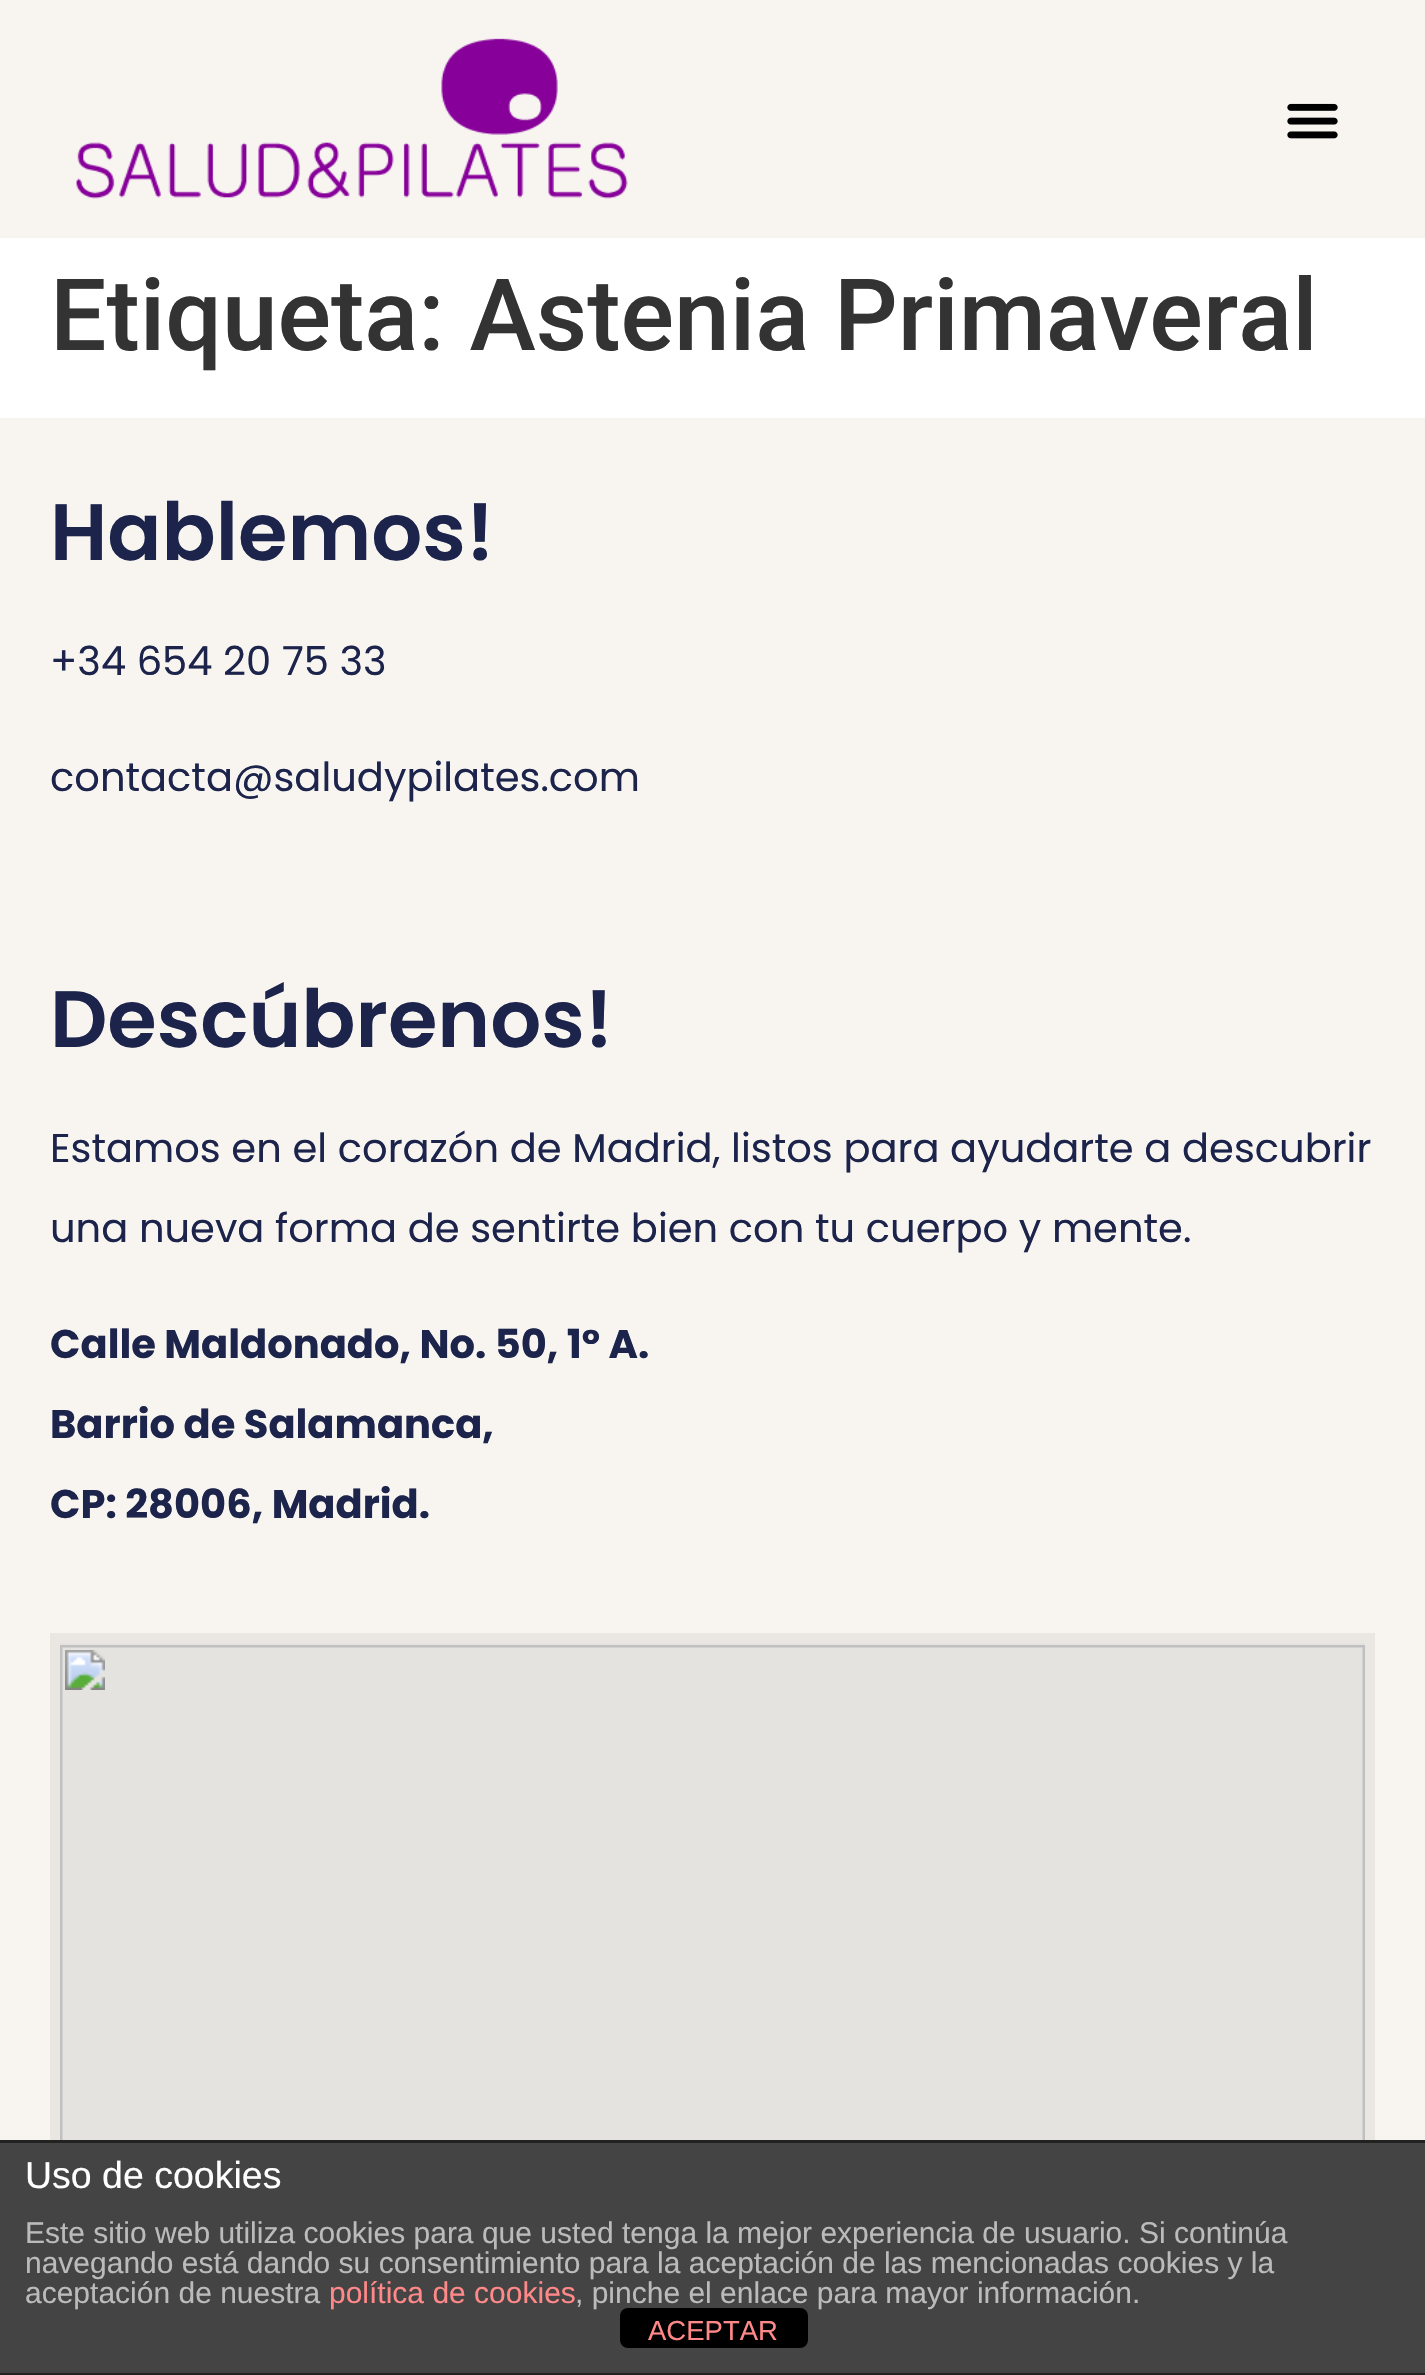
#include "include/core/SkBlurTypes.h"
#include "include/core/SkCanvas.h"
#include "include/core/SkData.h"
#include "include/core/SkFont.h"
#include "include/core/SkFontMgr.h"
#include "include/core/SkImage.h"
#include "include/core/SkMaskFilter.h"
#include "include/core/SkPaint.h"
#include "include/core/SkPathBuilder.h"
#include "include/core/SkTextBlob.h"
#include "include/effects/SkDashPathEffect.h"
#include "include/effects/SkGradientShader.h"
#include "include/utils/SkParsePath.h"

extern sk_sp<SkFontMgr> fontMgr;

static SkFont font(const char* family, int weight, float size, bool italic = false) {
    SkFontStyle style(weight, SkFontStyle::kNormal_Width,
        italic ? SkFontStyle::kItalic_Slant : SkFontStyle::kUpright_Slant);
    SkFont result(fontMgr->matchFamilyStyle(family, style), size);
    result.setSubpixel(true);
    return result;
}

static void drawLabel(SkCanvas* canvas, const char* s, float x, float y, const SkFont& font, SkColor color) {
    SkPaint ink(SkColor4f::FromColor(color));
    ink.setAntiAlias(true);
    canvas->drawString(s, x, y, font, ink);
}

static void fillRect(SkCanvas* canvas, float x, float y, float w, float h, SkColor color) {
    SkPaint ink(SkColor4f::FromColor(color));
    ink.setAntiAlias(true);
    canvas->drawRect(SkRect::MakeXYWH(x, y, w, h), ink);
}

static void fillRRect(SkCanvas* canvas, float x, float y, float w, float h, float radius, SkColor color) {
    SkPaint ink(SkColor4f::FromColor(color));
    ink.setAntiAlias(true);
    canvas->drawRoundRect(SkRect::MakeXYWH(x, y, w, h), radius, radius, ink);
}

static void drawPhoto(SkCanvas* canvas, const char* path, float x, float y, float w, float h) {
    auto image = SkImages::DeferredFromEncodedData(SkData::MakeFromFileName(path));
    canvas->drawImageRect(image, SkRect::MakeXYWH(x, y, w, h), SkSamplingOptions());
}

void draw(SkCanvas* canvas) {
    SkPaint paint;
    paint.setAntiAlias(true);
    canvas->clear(0xFFFFFFFF);
    fillRect(canvas, 0, 0, 1425, 238, 0xFFF8F5F1);
    drawPhoto(canvas, "assets/img1.png", 76, 38, 552, 161);
    drawPhoto(canvas, "assets/img2.png", 1287, 103, 51, 36);
    SkFont font1 = font("Roboto", 500, 100);
    drawLabel(canvas, "Etiqueta: Astenia Primaveral", 50, 350, font1, 0xFF333333);
    fillRect(canvas, 0, 418, 1425, 1722, 0xFFF8F5F1);
    SkFont font2 = font("Poppins", 600, 80);
    drawLabel(canvas, "Hablemos!", 50, 560, font2, 0xFF1C244B);
    SkFont font3 = font("Poppins", 400, 40);
    drawLabel(canvas, "+34 654 20 75 33", 50, 675, font3, 0xFF1C244B);
    drawLabel(canvas, "contacta@saludypilates.com", 50, 791, font3, 0xFF1C244B);
    drawLabel(canvas, "Descúbrenos!", 50, 1047, font2, 0xFF1C244B);
    drawLabel(canvas, "Estamos en el corazón de Madrid, listos para ayudarte a descubrir", 50, 1162, font3, 0xFF1C244B);
    drawLabel(canvas, "una nueva forma de sentirte bien con tu cuerpo y mente.", 50, 1242, font3, 0xFF1C244B);
    SkFont font4 = font("Poppins", 700, 40);
    drawLabel(canvas, "Calle Maldonado, No. 50, 1º A.", 50, 1358, font4, 0xFF1C244B);
    drawLabel(canvas, "Barrio de Salamanca,", 50, 1438, font4, 0xFF1C244B);
    drawLabel(canvas, "CP: 28006, Madrid.", 50, 1518, font4, 0xFF1C244B);
    paint.setStroke(true);
    paint.setStrokeWidth(10);
    paint.setColor(0xFFEAE7E2);
    canvas->drawRect(SkRect::MakeXYWH(55, 1638, 1315, 622), paint);
    drawPhoto(canvas, "assets/img3.png", 60, 1643, 1305, 497);
    fillRect(canvas, 0, 2143, 1425, 230, 0xFF444444);
    fillRect(canvas, 0, 2140, 1425, 3, 0xFF222222);
    fillRect(canvas, 0, 2373, 1425, 2, 0xFF222222);
    SkFont font5 = font("Liberation Sans", 400, 37.5f);
    drawLabel(canvas, "Uso de cookies", 25, 2188, font5, 0xFFFFFFFF);
    SkFont font6 = font("Liberation Sans", 400, 30);
    drawLabel(canvas, "Este sitio web utiliza cookies para que usted tenga la mejor experiencia de usuario. Si continúa", 25, 2243, font6, 0xFFBBBBBB);
    drawLabel(canvas, "navegando está dando su consentimiento para la aceptación de las mencionadas cookies y la", 25, 2273, font6, 0xFFBBBBBB);
    drawLabel(canvas, "aceptación de nuestra", 25, 2303, font6, 0xFFBBBBBB);
    drawLabel(canvas, "política de cookies", 329, 2303, font6, 0xFFFF8888);
    fillRRect(canvas, 620, 2308, 188, 40, 8, 0xFF000000);
    drawLabel(canvas, ", pinche el enlace para mayor información.", 575, 2303, font6, 0xFFBBBBBB);
    SkFont font7 = font("Liberation Sans", 400, 27.5f);
    drawLabel(canvas, "ACEPTAR", 648, 2340, font7, 0xFFFF8888);
}
